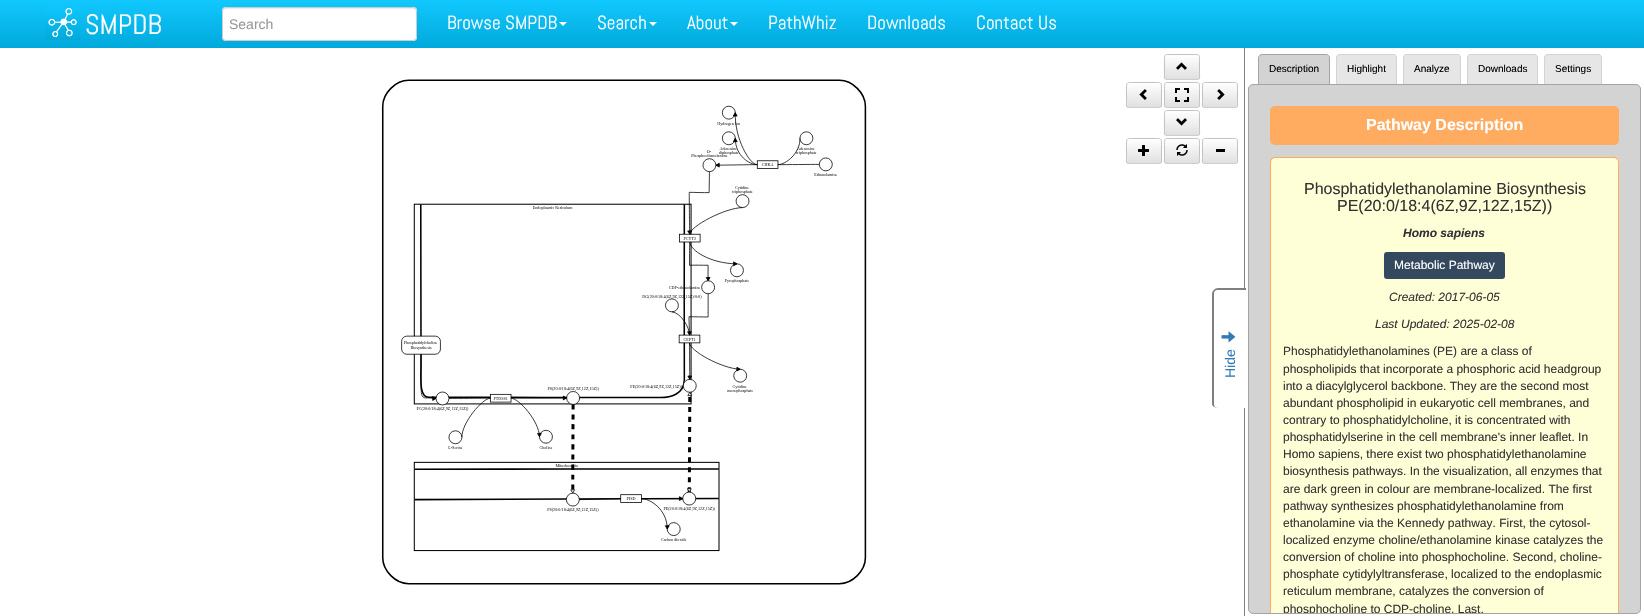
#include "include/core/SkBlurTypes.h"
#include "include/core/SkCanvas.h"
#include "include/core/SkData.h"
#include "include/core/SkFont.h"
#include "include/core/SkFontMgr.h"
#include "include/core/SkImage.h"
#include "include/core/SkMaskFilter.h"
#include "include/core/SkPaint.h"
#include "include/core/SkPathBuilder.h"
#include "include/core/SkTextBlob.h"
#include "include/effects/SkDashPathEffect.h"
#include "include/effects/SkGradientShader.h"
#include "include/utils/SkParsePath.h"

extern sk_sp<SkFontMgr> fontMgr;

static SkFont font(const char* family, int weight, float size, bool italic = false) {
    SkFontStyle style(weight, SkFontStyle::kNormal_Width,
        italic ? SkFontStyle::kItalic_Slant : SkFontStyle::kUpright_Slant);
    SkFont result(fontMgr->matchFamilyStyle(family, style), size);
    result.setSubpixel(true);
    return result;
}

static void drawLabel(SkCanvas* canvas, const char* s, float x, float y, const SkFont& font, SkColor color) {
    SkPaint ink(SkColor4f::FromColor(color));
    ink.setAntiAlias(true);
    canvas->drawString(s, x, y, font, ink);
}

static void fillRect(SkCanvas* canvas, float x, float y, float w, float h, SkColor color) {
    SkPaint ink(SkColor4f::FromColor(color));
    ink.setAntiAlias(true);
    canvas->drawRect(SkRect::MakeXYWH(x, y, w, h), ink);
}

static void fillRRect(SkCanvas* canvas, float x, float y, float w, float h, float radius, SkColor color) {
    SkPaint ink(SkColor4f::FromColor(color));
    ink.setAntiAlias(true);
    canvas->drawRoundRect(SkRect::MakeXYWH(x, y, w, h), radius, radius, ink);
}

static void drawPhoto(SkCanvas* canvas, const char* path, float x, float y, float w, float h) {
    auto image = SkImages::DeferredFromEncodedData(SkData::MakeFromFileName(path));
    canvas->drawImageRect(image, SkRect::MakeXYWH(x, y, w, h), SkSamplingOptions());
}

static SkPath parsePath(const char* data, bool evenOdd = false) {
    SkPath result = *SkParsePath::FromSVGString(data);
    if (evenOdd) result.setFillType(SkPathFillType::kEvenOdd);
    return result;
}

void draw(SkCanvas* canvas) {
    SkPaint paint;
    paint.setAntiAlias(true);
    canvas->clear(0xFFFFFFFF);
    {
        const SkColor colors[] = {0xFF11C8FE, 0xFF01A9DB};
        const float stops[] = {0, 1};
        const SkPoint ends[] = {{822, 0}, {822, 48}};
        paint.setShader(SkGradientShader::MakeLinear(ends, colors, stops, 2, SkTileMode::kClamp));
        paint.setAlpha(255);
    }
    canvas->drawRect(SkRect::MakeXYWH(0, 0, 1644, 48), paint);
    drawPhoto(canvas, "assets/img1.png", 45, 7, 35, 33);
    SkFont font1 = font("Abel", 400, 28);
    drawLabel(canvas, "SMPDB", 85, 34, font1, 0xFFFFFFFF);
    fillRRect(canvas, 222, 7, 195, 34, 4, 0xFFFFFFFF);
    paint.setShader(nullptr);
    paint.setColor(0xFFECECEC);
    canvas->drawPath(parsePath("M226 9H413C415 9 416 10 416 12C416 10 415 8 413 8H226C224 8 223 10 223 12C223 10 224 9 226 9Z"), paint);
    paint.setStroke(true);
    paint.setStrokeWidth(1);
    paint.setColor(0xFFCCCCCC);
    canvas->drawRoundRect(SkRect::MakeXYWH(222.5f, 7.5f, 194, 33), 3.5f, 3.5f, paint);
    SkFont font2 = font("Liberation Sans", 400, 14);
    drawLabel(canvas, "Search", 229, 29, font2, 0xFF999999);
    SkFont font3 = font("Abel", 400, 19);
    drawLabel(canvas, "Browse SMPDB", 447, 29, font3, 0xFFFFFFFF);
    paint.setStroke(false);
    paint.setColor(0xFFFFFFFF);
    canvas->drawPath(parsePath("M559 22H567L563 26Z"), paint);
    drawLabel(canvas, "Search", 597, 29, font3, 0xFFFFFFFF);
    canvas->drawPath(parsePath("M649 22H657L653 26Z"), paint);
    drawLabel(canvas, "About", 687, 29, font3, 0xFFFFFFFF);
    canvas->drawPath(parsePath("M730 22H738L734 26Z"), paint);
    drawLabel(canvas, "PathWhiz", 768, 29, font3, 0xFFFFFFFF);
    drawLabel(canvas, "Downloads", 867, 29, font3, 0xFFFFFFFF);
    drawLabel(canvas, "Contact Us", 976, 29, font3, 0xFFFFFFFF);
    drawPhoto(canvas, "assets/img2.png", 381, 79, 486, 506);
    canvas->save();
    canvas->clipPath(parsePath("M1167 54H1197C1198.5 54 1200 55.5 1200 57V77C1200 78.5 1198.5 80 1197 80H1167C1165.5 80 1164 78.5 1164 77V57C1164 55.5 1165.5 54 1167 54Z"), true);
    {
        const SkColor colors[] = {0xFFFFFFFF, 0xFFE0E0E0};
        const float stops[] = {0, 1};
        const SkPoint ends[] = {{1182, 55}, {1182, 79}};
        paint.setShader(SkGradientShader::MakeLinear(ends, colors, stops, 2, SkTileMode::kClamp));
        paint.setAlpha(255);
    }
    canvas->drawRect(SkRect::MakeXYWH(1164, 55, 36, 24), paint);
    canvas->restore();
    paint.setStroke(true);
    paint.setShader(nullptr);
    paint.setColor(0xFFCCCCCC);
    canvas->drawPath(parsePath("M1199 79C1198.5 79 1197.5 79.5 1197 79.5H1167C1166.5 79.5 1165.5 79 1165 79"), paint);
    paint.setColor(0xFFC2C2C2);
    canvas->drawPath(parsePath("M1165 79C1164 77.5 1164.5 75 1164.5 73.5V60.5C1164.5 53.5 1165 54.5 1172 54.5H1192C1199 54.5 1199.5 53.5 1199.5 60.5V73.5C1199.5 75 1200 77.5 1199 79"), paint);
    drawPhoto(canvas, "assets/img3.png", 1176, 62, 11, 8);
    canvas->save();
    canvas->clipPath(parsePath("M1129 82H1159C1160.5 82 1162 83.5 1162 85V105C1162 106.5 1160.5 108 1159 108H1129C1127.5 108 1126 106.5 1126 105V85C1126 83.5 1127.5 82 1129 82Z"), true);
    paint.setStroke(false);
    {
        const SkColor colors[] = {0xFFFFFFFF, 0xFFE0E0E0};
        const float stops[] = {0, 1};
        const SkPoint ends[] = {{1144, 83}, {1144, 107}};
        paint.setShader(SkGradientShader::MakeLinear(ends, colors, stops, 2, SkTileMode::kClamp));
        paint.setAlpha(255);
    }
    canvas->drawRect(SkRect::MakeXYWH(1126, 83, 36, 24), paint);
    canvas->restore();
    paint.setStroke(true);
    paint.setShader(nullptr);
    paint.setColor(0xFFCCCCCC);
    canvas->drawPath(parsePath("M1161 107C1160.5 107 1159.5 107.5 1159 107.5H1129C1128.5 107.5 1127.5 107 1127 107"), paint);
    paint.setColor(0xFFC2C2C2);
    canvas->drawPath(parsePath("M1127 107C1126 105.5 1126.5 103 1126.5 101.5V88.5C1126.5 81.5 1127 82.5 1134 82.5H1154C1161 82.5 1161.5 81.5 1161.5 88.5V101.5C1161.5 103 1162 105.5 1161 107"), paint);
    drawPhoto(canvas, "assets/img4.png", 1139, 89, 8, 11);
    canvas->save();
    canvas->clipPath(parsePath("M1167 82H1197C1198.5 82 1200 83.5 1200 85V105C1200 106.5 1198.5 108 1197 108H1167C1165.5 108 1164 106.5 1164 105V85C1164 83.5 1165.5 82 1167 82Z"), true);
    paint.setStroke(false);
    {
        const SkColor colors[] = {0xFFFFFFFF, 0xFFE0E0E0};
        const float stops[] = {0, 1};
        const SkPoint ends[] = {{1182, 83}, {1182, 107}};
        paint.setShader(SkGradientShader::MakeLinear(ends, colors, stops, 2, SkTileMode::kClamp));
        paint.setAlpha(255);
    }
    canvas->drawRect(SkRect::MakeXYWH(1164, 83, 36, 24), paint);
    canvas->restore();
    paint.setStroke(true);
    paint.setShader(nullptr);
    paint.setColor(0xFFCCCCCC);
    canvas->drawPath(parsePath("M1199 107C1198.5 107 1197.5 107.5 1197 107.5H1167C1166.5 107.5 1165.5 107 1165 107"), paint);
    paint.setColor(0xFFC2C2C2);
    canvas->drawPath(parsePath("M1165 107C1164 105.5 1164.5 103 1164.5 101.5V88.5C1164.5 81.5 1165 82.5 1172 82.5H1192C1199 82.5 1199.5 81.5 1199.5 88.5V101.5C1199.5 103 1200 105.5 1199 107"), paint);
    drawPhoto(canvas, "assets/img5.png", 1175, 88, 14, 14);
    canvas->save();
    canvas->clipPath(parsePath("M1205 82H1235C1236.5 82 1238 83.5 1238 85V105C1238 106.5 1236.5 108 1235 108H1205C1203.5 108 1202 106.5 1202 105V85C1202 83.5 1203.5 82 1205 82Z"), true);
    paint.setStroke(false);
    {
        const SkColor colors[] = {0xFFFFFFFF, 0xFFE0E0E0};
        const float stops[] = {0, 1};
        const SkPoint ends[] = {{1220, 83}, {1220, 107}};
        paint.setShader(SkGradientShader::MakeLinear(ends, colors, stops, 2, SkTileMode::kClamp));
        paint.setAlpha(255);
    }
    canvas->drawRect(SkRect::MakeXYWH(1202, 83, 36, 24), paint);
    canvas->restore();
    paint.setStroke(true);
    paint.setShader(nullptr);
    paint.setColor(0xFFCCCCCC);
    canvas->drawPath(parsePath("M1237 107C1236.5 107 1235.5 107.5 1235 107.5H1205C1204.5 107.5 1203.5 107 1203 107"), paint);
    paint.setColor(0xFFC2C2C2);
    canvas->drawPath(parsePath("M1203 107C1202 105.5 1202.5 103 1202.5 101.5V88.5C1202.5 81.5 1203 82.5 1210 82.5H1230C1237 82.5 1237.5 81.5 1237.5 88.5V101.5C1237.5 103 1238 105.5 1237 107"), paint);
    drawPhoto(canvas, "assets/img6.png", 1217, 89, 8, 11);
    canvas->save();
    canvas->clipPath(parsePath("M1167 110H1197C1198.5 110 1200 111.5 1200 113V133C1200 134.5 1198.5 136 1197 136H1167C1165.5 136 1164 134.5 1164 133V113C1164 111.5 1165.5 110 1167 110Z"), true);
    paint.setStroke(false);
    {
        const SkColor colors[] = {0xFFFFFFFF, 0xFFE0E0E0};
        const float stops[] = {0, 1};
        const SkPoint ends[] = {{1182, 111}, {1182, 135}};
        paint.setShader(SkGradientShader::MakeLinear(ends, colors, stops, 2, SkTileMode::kClamp));
        paint.setAlpha(255);
    }
    canvas->drawRect(SkRect::MakeXYWH(1164, 111, 36, 24), paint);
    canvas->restore();
    paint.setStroke(true);
    paint.setShader(nullptr);
    paint.setColor(0xFFCCCCCC);
    canvas->drawPath(parsePath("M1199 135C1198.5 135 1197.5 135.5 1197 135.5H1167C1166.5 135.5 1165.5 135 1165 135"), paint);
    paint.setColor(0xFFC2C2C2);
    canvas->drawPath(parsePath("M1165 135C1164 133.5 1164.5 131 1164.5 129.5V116.5C1164.5 109.5 1165 110.5 1172 110.5H1192C1199 110.5 1199.5 109.5 1199.5 116.5V129.5C1199.5 131 1200 133.5 1199 135"), paint);
    drawPhoto(canvas, "assets/img7.png", 1176, 118, 11, 8);
    canvas->save();
    canvas->clipPath(parsePath("M1129 138H1159C1160.5 138 1162 139.5 1162 141V161C1162 162.5 1160.5 164 1159 164H1129C1127.5 164 1126 162.5 1126 161V141C1126 139.5 1127.5 138 1129 138Z"), true);
    paint.setStroke(false);
    {
        const SkColor colors[] = {0xFFFFFFFF, 0xFFE0E0E0};
        const float stops[] = {0, 1};
        const SkPoint ends[] = {{1144, 139}, {1144, 163}};
        paint.setShader(SkGradientShader::MakeLinear(ends, colors, stops, 2, SkTileMode::kClamp));
        paint.setAlpha(255);
    }
    canvas->drawRect(SkRect::MakeXYWH(1126, 139, 36, 24), paint);
    canvas->restore();
    paint.setStroke(true);
    paint.setShader(nullptr);
    paint.setColor(0xFFCCCCCC);
    canvas->drawPath(parsePath("M1161 163C1160.5 163 1159.5 163.5 1159 163.5H1129C1128.5 163.5 1127.5 163 1127 163"), paint);
    paint.setColor(0xFFC2C2C2);
    canvas->drawPath(parsePath("M1127 163C1126 161.5 1126.5 159 1126.5 157.5V144.5C1126.5 137.5 1127 138.5 1134 138.5H1154C1161 138.5 1161.5 137.5 1161.5 144.5V157.5C1161.5 159 1162 161.5 1161 163"), paint);
    drawPhoto(canvas, "assets/img8.png", 1138, 145, 11, 11);
    canvas->save();
    canvas->clipPath(parsePath("M1167 138H1197C1198.5 138 1200 139.5 1200 141V161C1200 162.5 1198.5 164 1197 164H1167C1165.5 164 1164 162.5 1164 161V141C1164 139.5 1165.5 138 1167 138Z"), true);
    paint.setStroke(false);
    {
        const SkColor colors[] = {0xFFFFFFFF, 0xFFE0E0E0};
        const float stops[] = {0, 1};
        const SkPoint ends[] = {{1182, 139}, {1182, 163}};
        paint.setShader(SkGradientShader::MakeLinear(ends, colors, stops, 2, SkTileMode::kClamp));
        paint.setAlpha(255);
    }
    canvas->drawRect(SkRect::MakeXYWH(1164, 139, 36, 24), paint);
    canvas->restore();
    paint.setStroke(true);
    paint.setShader(nullptr);
    paint.setColor(0xFFCCCCCC);
    canvas->drawPath(parsePath("M1199 163C1198.5 163 1197.5 163.5 1197 163.5H1167C1166.5 163.5 1165.5 163 1165 163"), paint);
    paint.setColor(0xFFC2C2C2);
    canvas->drawPath(parsePath("M1165 163C1164 161.5 1164.5 159 1164.5 157.5V144.5C1164.5 137.5 1165 138.5 1172 138.5H1192C1199 138.5 1199.5 137.5 1199.5 144.5V157.5C1199.5 159 1200 161.5 1199 163"), paint);
    drawPhoto(canvas, "assets/img9.png", 1176, 144, 12, 12);
    canvas->save();
    canvas->clipPath(parsePath("M1205 138H1235C1236.5 138 1238 139.5 1238 141V161C1238 162.5 1236.5 164 1235 164H1205C1203.5 164 1202 162.5 1202 161V141C1202 139.5 1203.5 138 1205 138Z"), true);
    paint.setStroke(false);
    {
        const SkColor colors[] = {0xFFFFFFFF, 0xFFE0E0E0};
        const float stops[] = {0, 1};
        const SkPoint ends[] = {{1220, 139}, {1220, 163}};
        paint.setShader(SkGradientShader::MakeLinear(ends, colors, stops, 2, SkTileMode::kClamp));
        paint.setAlpha(255);
    }
    canvas->drawRect(SkRect::MakeXYWH(1202, 139, 36, 24), paint);
    canvas->restore();
    paint.setStroke(true);
    paint.setShader(nullptr);
    paint.setColor(0xFFCCCCCC);
    canvas->drawPath(parsePath("M1237 163C1236.5 163 1235.5 163.5 1235 163.5H1205C1204.5 163.5 1203.5 163 1203 163"), paint);
    paint.setColor(0xFFC2C2C2);
    canvas->drawPath(parsePath("M1203 163C1202 161.5 1202.5 159 1202.5 157.5V144.5C1202.5 137.5 1203 138.5 1210 138.5H1230C1237 138.5 1237.5 137.5 1237.5 144.5V157.5C1237.5 159 1238 161.5 1237 163"), paint);
    fillRect(canvas, 1216, 149, 9, 3, 0xFF000000);
    fillRect(canvas, 1244, 48, 1, 568, 0xFF808080);
    paint.setStroke(false);
    paint.setColor(0xFFD3D3D3);
    canvas->drawRoundRect(SkRect::MakeXYWH(1248.5f, 84.5f, 392, 529), 4.5f, 4.5f, paint);
    paint.setStroke(true);
    paint.setColor(0xFFA4A4A4);
    canvas->drawRoundRect(SkRect::MakeXYWH(1248.5f, 84.5f, 392, 529), 4.5f, 4.5f, paint);
    paint.setStroke(false);
    paint.setColor(0xFFD3D3D3);
    canvas->drawPath(parsePath("M1262 54.5H1326C1328 54.5 1329.5 56 1329.5 58V84.5H1258.5V58C1258.5 56 1260 54.5 1262 54.5Z"), paint);
    paint.setStroke(true);
    paint.setColor(0xFFA4A4A4);
    canvas->drawPath(parsePath("M1262 54.5H1326C1328 54.5 1329.5 56 1329.5 58V84.5H1258.5V58C1258.5 56 1260 54.5 1262 54.5Z"), paint);
    SkFont font4 = font("Liberation Sans", 400, 10);
    drawLabel(canvas, "Description", 1269, 72, font4, 0xFF000000);
    paint.setStroke(false);
    paint.setColor(0xFFE6E6E6);
    canvas->drawPath(parsePath("M1340 54H1393C1395 54 1397 56 1397 58V84H1336V58C1336 56 1338 54 1340 54Z"), paint);
    paint.setColor(0xFFD3D3D3);
    canvas->drawPath(parsePath("M1340 54H1393C1395 54 1397 56 1397 58V84H1336V58C1336 56 1338 54 1340 54ZM1340 55H1393C1395 55 1396 56 1396 58V84H1337V58C1337 56 1338 55 1340 55Z", true), paint);
    drawLabel(canvas, "Highlight", 1347, 72, font4, 0xFF000000);
    paint.setColor(0xFFE6E6E6);
    canvas->drawPath(parsePath("M1407 54H1457C1459 54 1461 56 1461 58V84H1403V58C1403 56 1405 54 1407 54Z"), paint);
    paint.setColor(0xFFD3D3D3);
    canvas->drawPath(parsePath("M1407 54H1457C1459 54 1461 56 1461 58V84H1403V58C1403 56 1405 54 1407 54ZM1407 55H1457C1459 55 1460 56 1460 58V84H1404V58C1404 56 1405 55 1407 55Z", true), paint);
    drawLabel(canvas, "Analyze", 1414, 72, font4, 0xFF000000);
    paint.setColor(0xFFE6E6E6);
    canvas->drawPath(parsePath("M1471 54H1534C1536 54 1538 56 1538 58V84H1467V58C1467 56 1469 54 1471 54Z"), paint);
    paint.setColor(0xFFD3D3D3);
    canvas->drawPath(parsePath("M1471 54H1534C1536 54 1538 56 1538 58V84H1467V58C1467 56 1469 54 1471 54ZM1471 55H1534C1536 55 1537 56 1537 58V84H1468V58C1468 56 1469 55 1471 55Z", true), paint);
    drawLabel(canvas, "Downloads", 1478, 72, font4, 0xFF000000);
    paint.setColor(0xFFE6E6E6);
    canvas->drawPath(parsePath("M1548 54H1598C1600 54 1602 56 1602 58V84H1544V58C1544 56 1546 54 1548 54Z"), paint);
    paint.setColor(0xFFD3D3D3);
    canvas->drawPath(parsePath("M1548 54H1598C1600 54 1602 56 1602 58V84H1544V58C1544 56 1546 54 1548 54ZM1548 55H1598C1600 55 1601 56 1601 58V84H1545V58C1545 56 1546 55 1548 55Z", true), paint);
    drawLabel(canvas, "Settings", 1555, 72, font4, 0xFF000000);
    fillRRect(canvas, 1270, 106, 349, 39, 5, 0xFFFFAB60);
    SkFont font5 = font("Liberation Sans", 700, 16);
    drawLabel(canvas, "Pathway Description", 1366, 130, font5, 0xFFFFFFFF);
    paint.setColor(0xFFFFFFD7);
    canvas->drawPath(parsePath("M1275 157H1614C1617 157 1619 159 1619 162V613H1270V162C1270 159 1272 157 1275 157Z"), paint);
    paint.setColor(0xFFFFAB60);
    canvas->drawPath(parsePath("M1275 157C1272 157 1270 159 1270 162V613H1271V162C1271 160 1273 158 1275 158H1614C1616 158 1618 160 1618 162V613H1619V162C1619 159 1617 157 1614 157Z"), paint);
    SkFont font6 = font("Liberation Sans", 400, 16);
    drawLabel(canvas, "Phosphatidylethanolamine Biosynthesis", 1304, 194, font6, 0xFF333333);
    drawLabel(canvas, "PE(20:0/18:4(6Z,9Z,12Z,15Z))", 1337, 211, font6, 0xFF333333);
    SkFont font7 = font("Liberation Sans", 700, 12, true);
    drawLabel(canvas, "Homo sapiens", 1403, 237, font7, 0xFF333333);
    fillRRect(canvas, 1384, 252, 121, 27, 3, 0xFF34495E);
    SkFont font8 = font("Liberation Sans", 400, 12);
    drawLabel(canvas, "Metabolic Pathway", 1394, 269, font8, 0xFFFFFFFF);
    SkFont font9 = font("Liberation Sans", 400, 12, true);
    drawLabel(canvas, "Created: 2017-06-05", 1389, 301, font9, 0xFF333333);
    drawLabel(canvas, "Last Updated: 2025-02-08", 1375, 328, font9, 0xFF333333);
    drawLabel(canvas, "Phosphatidylethanolamines (PE) are a class of", 1283, 355, font8, 0xFF333333);
    drawLabel(canvas, "phospholipids that incorporate a phosphoric acid headgroup", 1283, 373, font8, 0xFF333333);
    drawLabel(canvas, "into a diacylglycerol backbone. They are the second most", 1283, 390, font8, 0xFF333333);
    drawLabel(canvas, "abundant phospholipid in eukaryotic cell membranes, and", 1283, 407, font8, 0xFF333333);
    drawLabel(canvas, "contrary to phosphatidylcholine, it is concentrated with", 1283, 424, font8, 0xFF333333);
    drawLabel(canvas, "phosphatidylserine in the cell membrane's inner leaflet. In", 1283, 441, font8, 0xFF333333);
    drawLabel(canvas, "Homo sapiens, there exist two phosphatidylethanolamine", 1283, 458, font8, 0xFF333333);
    drawLabel(canvas, "biosynthesis pathways. In the visualization, all enzymes that", 1283, 475, font8, 0xFF333333);
    drawLabel(canvas, "are dark green in colour are membrane-localized. The first", 1283, 493, font8, 0xFF333333);
    drawLabel(canvas, "pathway synthesizes phosphatidylethanolamine from", 1283, 510, font8, 0xFF333333);
    drawLabel(canvas, "ethanolamine via the Kennedy pathway. First, the cytosol-", 1283, 527, font8, 0xFF333333);
    drawLabel(canvas, "localized enzyme choline/ethanolamine kinase catalyzes the", 1283, 544, font8, 0xFF333333);
    drawLabel(canvas, "conversion of choline into phosphocholine. Second, choline-", 1283, 561, font8, 0xFF333333);
    drawLabel(canvas, "phosphate cytidylyltransferase, localized to the endoplasmic", 1283, 578, font8, 0xFF333333);
    drawLabel(canvas, "reticulum membrane, catalyzes the conversion of", 1283, 595, font8, 0xFF333333);
    canvas->save();
    canvas->clipPath(parsePath("M1253 85H1636C1638 85 1640 87 1640 89V609C1640 611 1638 613 1636 613H1253C1251 613 1249 611 1249 609V89C1249 87 1251 85 1253 85Z"), true);
    drawLabel(canvas, "phosphocholine to CDP-choline. Last,", 1283, 613, font8, 0xFF333333);
    canvas->restore();
    paint.setColor(0xFFFFFFFF);
    canvas->drawPath(parsePath("M1212 404V294C1212 291 1215 288 1218 288H1246V408H1218C1215 408 1212 406 1212 404Z"), paint);
    paint.setColor(0xFF808080);
    canvas->drawPath(parsePath("M1212 404V294C1212 291 1215 288 1218 288H1246V408H1218C1215 408 1212 406 1212 404ZM1214 404V294C1214 291 1215 290 1218 290H1246V408H1218C1215 408 1214 406 1214 404Z", true), paint);
    drawPhoto(canvas, "assets/img10.png", 1221, 331, 15, 12);
    canvas->save();
    canvas->rotate(-90, 1235, 378);
    drawLabel(canvas, "Hide", 1235, 378, font2, 0xFF337AB7);
    canvas->restore();
}
